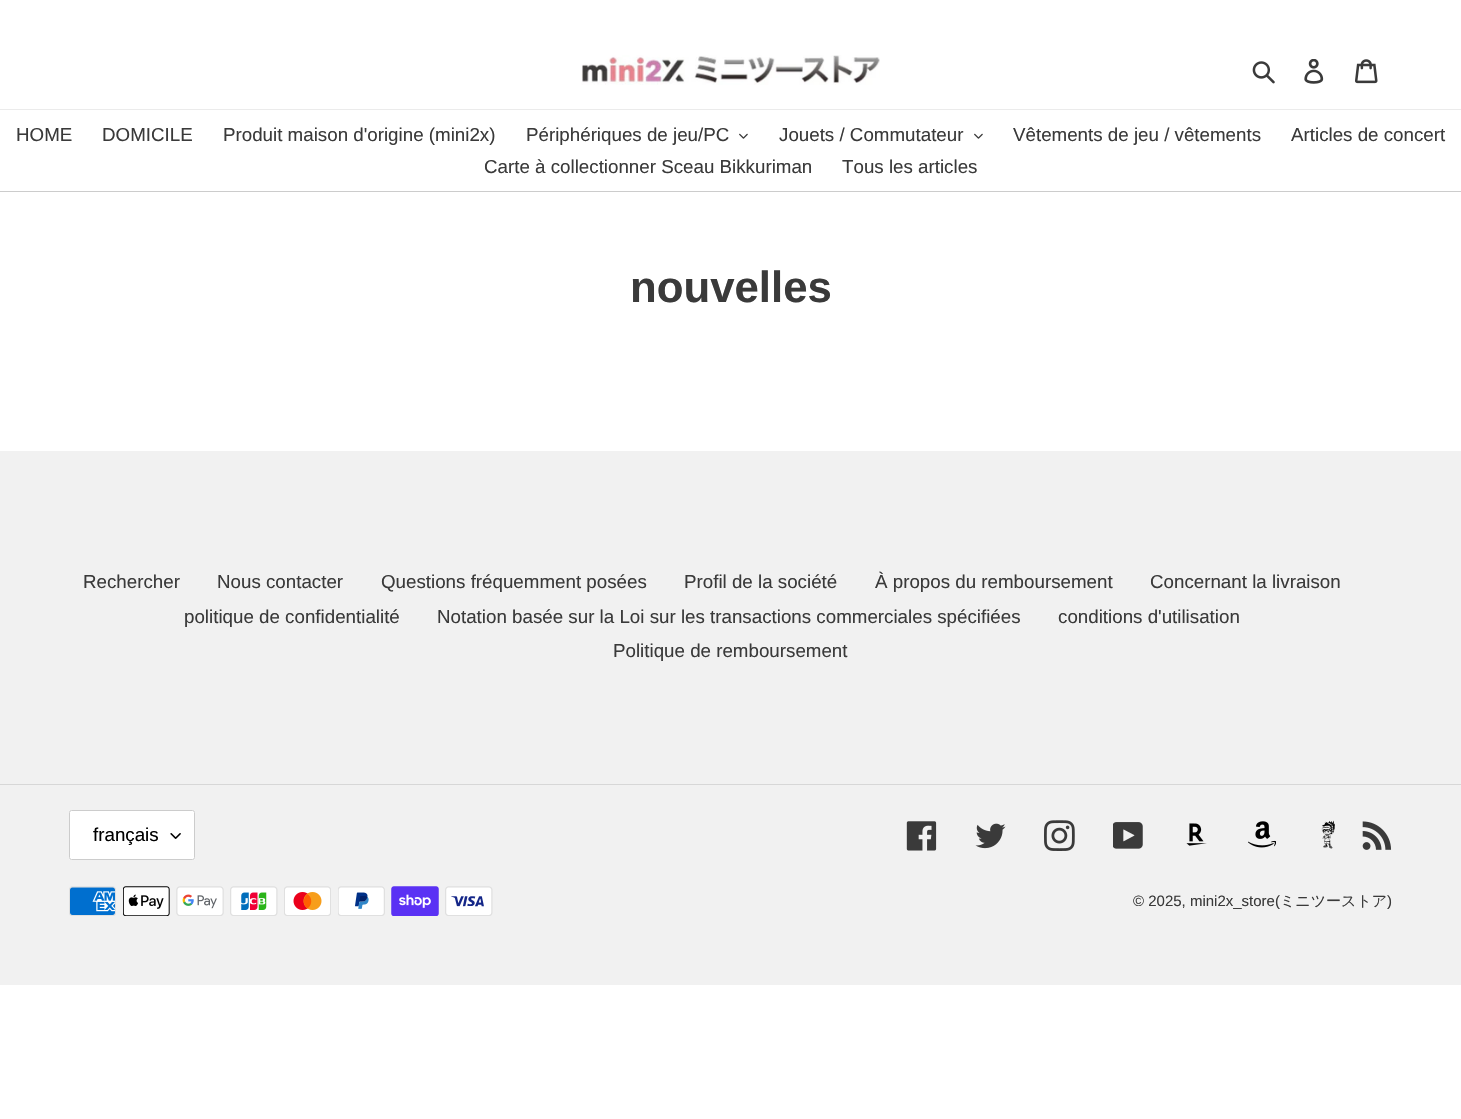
#include "include/core/SkBlurTypes.h"
#include "include/core/SkCanvas.h"
#include "include/core/SkData.h"
#include "include/core/SkFont.h"
#include "include/core/SkFontMgr.h"
#include "include/core/SkImage.h"
#include "include/core/SkMaskFilter.h"
#include "include/core/SkPaint.h"
#include "include/core/SkPathBuilder.h"
#include "include/core/SkTextBlob.h"
#include "include/effects/SkDashPathEffect.h"
#include "include/effects/SkGradientShader.h"
#include "include/utils/SkParsePath.h"

extern sk_sp<SkFontMgr> fontMgr;

static SkFont font(const char* family, int weight, float size, bool italic = false) {
    SkFontStyle style(weight, SkFontStyle::kNormal_Width,
        italic ? SkFontStyle::kItalic_Slant : SkFontStyle::kUpright_Slant);
    SkFont result(fontMgr->matchFamilyStyle(family, style), size);
    result.setSubpixel(true);
    return result;
}

static void drawLabel(SkCanvas* canvas, const char* s, float x, float y, const SkFont& font, SkColor color) {
    SkPaint ink(SkColor4f::FromColor(color));
    ink.setAntiAlias(true);
    canvas->drawString(s, x, y, font, ink);
}

static void fillRect(SkCanvas* canvas, float x, float y, float w, float h, SkColor color) {
    SkPaint ink(SkColor4f::FromColor(color));
    ink.setAntiAlias(true);
    canvas->drawRect(SkRect::MakeXYWH(x, y, w, h), ink);
}

static void fillRRect(SkCanvas* canvas, float x, float y, float w, float h, float radius, SkColor color) {
    SkPaint ink(SkColor4f::FromColor(color));
    ink.setAntiAlias(true);
    canvas->drawRoundRect(SkRect::MakeXYWH(x, y, w, h), radius, radius, ink);
}

static void drawPhoto(SkCanvas* canvas, const char* path, float x, float y, float w, float h) {
    auto image = SkImages::DeferredFromEncodedData(SkData::MakeFromFileName(path));
    canvas->drawImageRect(image, SkRect::MakeXYWH(x, y, w, h), SkSamplingOptions());
}

void draw(SkCanvas* canvas) {
    SkPaint paint;
    paint.setAntiAlias(true);
    canvas->clear(0xFFFFFFFF);
    drawPhoto(canvas, "assets/img1.png", 581, 55, 299, 30);
    drawPhoto(canvas, "assets/img2.png", 1252, 61, 23, 23);
    drawPhoto(canvas, "assets/img3.png", 1304, 59, 20, 25);
    drawPhoto(canvas, "assets/img4.png", 1355, 59, 23, 25);
    fillRect(canvas, 0, 191, 1461, 1, 0xFFCCCCCC);
    fillRect(canvas, 0, 109, 1461, 1, 0xFFEBEBEB);
    SkFont font1 = font("Liberation Sans", 400, 18.75f);
    drawLabel(canvas, "HOME", 16, 141, font1, 0xFF3A3A3A);
    drawLabel(canvas, "DOMICILE", 102, 141, font1, 0xFF3A3A3A);
    drawLabel(canvas, "Produit maison d'origine (mini2x)", 223, 141, font1, 0xFF3A3A3A);
    drawLabel(canvas, "Périphériques de jeu/PC", 526, 141, font1, 0xFF3A3A3A);
    drawPhoto(canvas, "assets/img5.png", 739, 133, 9, 6);
    drawLabel(canvas, "Jouets / Commutateur", 779, 141, font1, 0xFF3A3A3A);
    drawPhoto(canvas, "assets/img5.png", 974, 133, 9, 6);
    drawLabel(canvas, "Vêtements de jeu / vêtements", 1013, 141, font1, 0xFF3A3A3A);
    drawLabel(canvas, "Articles de concert", 1291, 141, font1, 0xFF3A3A3A);
    drawLabel(canvas, "Carte à collectionner Sceau Bikkuriman", 484, 173, font1, 0xFF3A3A3A);
    drawLabel(canvas, "Tous les articles", 842, 173, font1, 0xFF3A3A3A);
    SkFont font2 = font("Liberation Sans", 700, 43.75f);
    drawLabel(canvas, "nouvelles", 630, 302, font2, 0xFF3A3A3A);
    fillRect(canvas, 0, 451, 1461, 534, 0xFFF1F1F1);
    drawLabel(canvas, "Rechercher", 83, 588, font1, 0xFF3A3A3A);
    drawLabel(canvas, "Nous contacter", 217, 588, font1, 0xFF3A3A3A);
    drawLabel(canvas, "Questions fréquemment posées", 381, 588, font1, 0xFF3A3A3A);
    drawLabel(canvas, "Profil de la société", 684, 588, font1, 0xFF3A3A3A);
    drawLabel(canvas, "À propos du remboursement", 875, 588, font1, 0xFF3A3A3A);
    drawLabel(canvas, "Concernant la livraison", 1150, 588, font1, 0xFF3A3A3A);
    drawLabel(canvas, "politique de confidentialité", 184, 623, font1, 0xFF3A3A3A);
    drawLabel(canvas, "Notation basée sur la Loi sur les transactions commerciales spécifiées", 437, 623, font1, 0xFF3A3A3A);
    drawLabel(canvas, "conditions d'utilisation", 1058, 623, font1, 0xFF3A3A3A);
    drawLabel(canvas, "Politique de remboursement", 613, 657, font1, 0xFF3A3A3A);
    fillRect(canvas, 0, 784, 1461, 1, 0xFFD7D7D7);
    fillRRect(canvas, 69, 810, 126, 50, 2.5f, 0xFFFFFFFF);
    drawPhoto(canvas, "assets/img6.png", 170, 833, 11, 6);
    paint.setStroke(true);
    paint.setStrokeWidth(1);
    paint.setColor(0xFFCCCCCC);
    canvas->drawRoundRect(SkRect::MakeXYWH(69.5f, 810.5f, 125, 49), 2, 2, paint);
    drawLabel(canvas, "français", 93, 841, font1, 0xFF000000);
    drawPhoto(canvas, "assets/img7.png", 906, 821, 31, 30);
    drawPhoto(canvas, "assets/img8.png", 975, 823, 31, 26);
    drawPhoto(canvas, "assets/img9.png", 1044, 820, 31, 31);
    drawPhoto(canvas, "assets/img10.png", 1113, 822, 30, 27);
    drawPhoto(canvas, "assets/img11.png", 1186, 823, 21, 23);
    drawPhoto(canvas, "assets/img12.png", 1248, 821, 28, 27);
    drawPhoto(canvas, "assets/img13.png", 1321, 820, 14, 29);
    drawPhoto(canvas, "assets/img14.png", 1362, 821, 30, 29);
    drawPhoto(canvas, "assets/img15.png", 69, 886, 47, 30);
    drawPhoto(canvas, "assets/img16.png", 123, 886, 47, 30);
    drawPhoto(canvas, "assets/img17.png", 176, 886, 48, 30);
    drawPhoto(canvas, "assets/img18.png", 230, 886, 48, 30);
    drawPhoto(canvas, "assets/img19.png", 284, 886, 47, 30);
    drawPhoto(canvas, "assets/img20.png", 338, 886, 47, 30);
    drawPhoto(canvas, "assets/img21.png", 391, 886, 48, 30);
    drawPhoto(canvas, "assets/img22.png", 445, 886, 48, 30);
    SkFont font3 = font("Liberation Sans", 400, 15);
    drawLabel(canvas, "© 2025, mini2x_store(", 1133, 906, font3, 0xFF3A3A3A);
    SkFont font4 = font("WenQuanYi Zen Hei", 500, 15);
    drawLabel(canvas, "ミニツーストア", 1280, 906, font4, 0xFF3A3A3A);
    drawLabel(canvas, ")", 1387, 906, font3, 0xFF3A3A3A);
}
